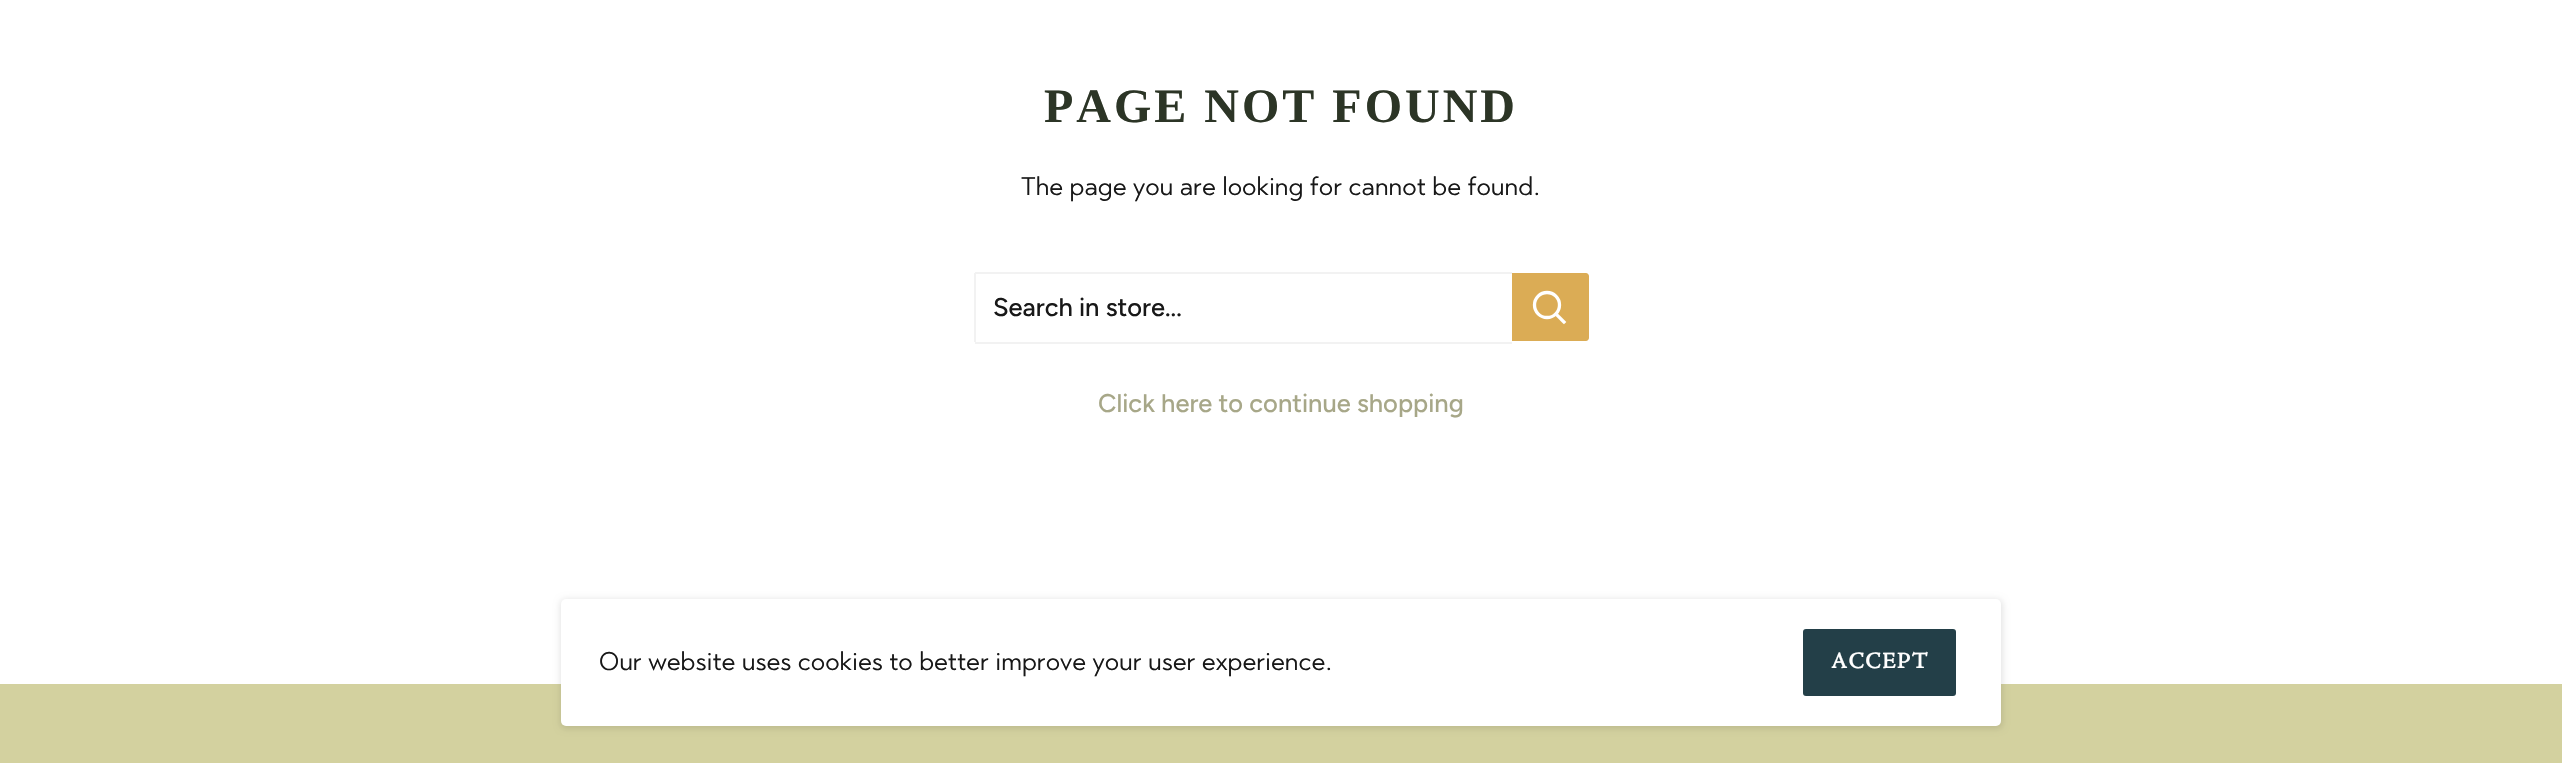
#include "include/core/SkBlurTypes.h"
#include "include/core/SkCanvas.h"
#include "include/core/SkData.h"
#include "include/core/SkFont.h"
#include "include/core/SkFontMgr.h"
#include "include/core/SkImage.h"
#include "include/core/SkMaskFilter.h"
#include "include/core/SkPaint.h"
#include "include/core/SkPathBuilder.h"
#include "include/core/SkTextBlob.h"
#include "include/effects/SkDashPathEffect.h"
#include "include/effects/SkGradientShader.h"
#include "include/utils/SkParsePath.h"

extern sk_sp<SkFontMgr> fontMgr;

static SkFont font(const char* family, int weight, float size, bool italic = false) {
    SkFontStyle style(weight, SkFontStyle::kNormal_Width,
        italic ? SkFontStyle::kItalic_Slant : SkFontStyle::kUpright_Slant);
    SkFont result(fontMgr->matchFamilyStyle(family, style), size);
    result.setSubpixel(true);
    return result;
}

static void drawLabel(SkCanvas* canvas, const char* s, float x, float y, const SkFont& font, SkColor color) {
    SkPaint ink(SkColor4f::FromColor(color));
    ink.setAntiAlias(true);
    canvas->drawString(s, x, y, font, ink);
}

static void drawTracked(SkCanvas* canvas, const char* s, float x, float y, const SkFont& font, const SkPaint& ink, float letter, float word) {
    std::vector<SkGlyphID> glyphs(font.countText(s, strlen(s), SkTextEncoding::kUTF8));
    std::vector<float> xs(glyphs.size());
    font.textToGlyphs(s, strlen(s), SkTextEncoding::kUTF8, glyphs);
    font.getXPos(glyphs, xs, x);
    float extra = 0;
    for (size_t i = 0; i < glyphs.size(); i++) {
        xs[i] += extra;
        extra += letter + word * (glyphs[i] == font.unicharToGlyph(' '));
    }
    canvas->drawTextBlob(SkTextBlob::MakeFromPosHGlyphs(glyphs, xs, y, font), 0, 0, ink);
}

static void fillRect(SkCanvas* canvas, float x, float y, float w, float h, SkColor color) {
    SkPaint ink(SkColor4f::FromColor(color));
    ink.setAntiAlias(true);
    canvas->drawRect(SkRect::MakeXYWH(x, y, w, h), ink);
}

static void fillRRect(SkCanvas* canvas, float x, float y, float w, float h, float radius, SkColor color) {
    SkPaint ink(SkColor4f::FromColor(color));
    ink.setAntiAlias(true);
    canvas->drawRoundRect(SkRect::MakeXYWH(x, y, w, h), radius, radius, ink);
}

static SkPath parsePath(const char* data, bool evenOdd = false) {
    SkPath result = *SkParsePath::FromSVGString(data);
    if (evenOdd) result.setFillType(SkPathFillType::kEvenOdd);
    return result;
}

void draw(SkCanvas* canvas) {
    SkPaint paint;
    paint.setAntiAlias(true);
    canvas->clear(0xFFFFFFFF);
    SkFont font1 = font("Liberation Serif", 700, 48);
    paint.setColor(0xFF2C3526);
    drawTracked(canvas, "PAGE NOT FOUND", 1044, 122, font1, paint, 3, 0);
    SkFont font2 = font("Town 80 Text", 400, 25.5f);
    drawLabel(canvas, "The page you are looking for cannot be found.", 1021, 195, font2, 0xFF181818);
    fillRect(canvas, 975, 272, 537, 2, 0xFFF2F2F2);
    fillRect(canvas, 975, 342, 537, 2, 0xFFF2F2F2);
    fillRect(canvas, 974, 273, 2, 69, 0xFFF2F2F2);
    SkFont font3 = font("Figtree", 500, 25.5f);
    drawLabel(canvas, "Search in store...", 993, 316, font3, 0xFF181818);
    paint.setColor(0xFFDBAC55);
    canvas->drawPath(parsePath("M1512 273H1586C1587.5 273 1589 274.5 1589 276V338C1589 339.5 1587.5 341 1586 341H1512Z"), paint);
    paint.setStroke(true);
    paint.setStrokeWidth(3.3f);
    paint.setStrokeCap(SkPaint::kSquare_Cap);
    paint.setColor(0xFFFFFFFF);
    canvas->drawPath(parsePath("M1564 322L1556 314"), paint);
    paint.setStrokeCap(SkPaint::kButt_Cap);
    canvas->drawCircle(1547, 305, 12.5f, paint);
    drawLabel(canvas, "Click here to continue shopping", 1098, 412, font3, 0xFFA7A788);
    fillRect(canvas, 0, 684, 2562, 79, 0xFFD3D19F);
    paint.setStroke(false);
    paint.setColor(0x1A000000);
    paint.setMaskFilter(SkMaskFilter::MakeBlur(kNormal_SkBlurStyle, 3));
    canvas->drawRoundRect(SkRect::MakeXYWH(560, 599, 1443, 130), 6, 6, paint);
    paint.setMaskFilter(nullptr);
    fillRRect(canvas, 561, 599, 1440, 127, 5, 0xFFFFFFFF);
    drawLabel(canvas, "Our website uses cookies to better improve your user experience.", 599, 670, font2, 0xFF181818);
    fillRRect(canvas, 1803, 629, 153, 67, 3, 0xFF233F48);
    SkFont font4 = font("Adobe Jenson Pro", 700, 22.5f);
    paint.setColor(0xFFFFFFFF);
    drawTracked(canvas, "ACCEPT", 1831, 668, font4, paint, 1.5f, 0);
}
